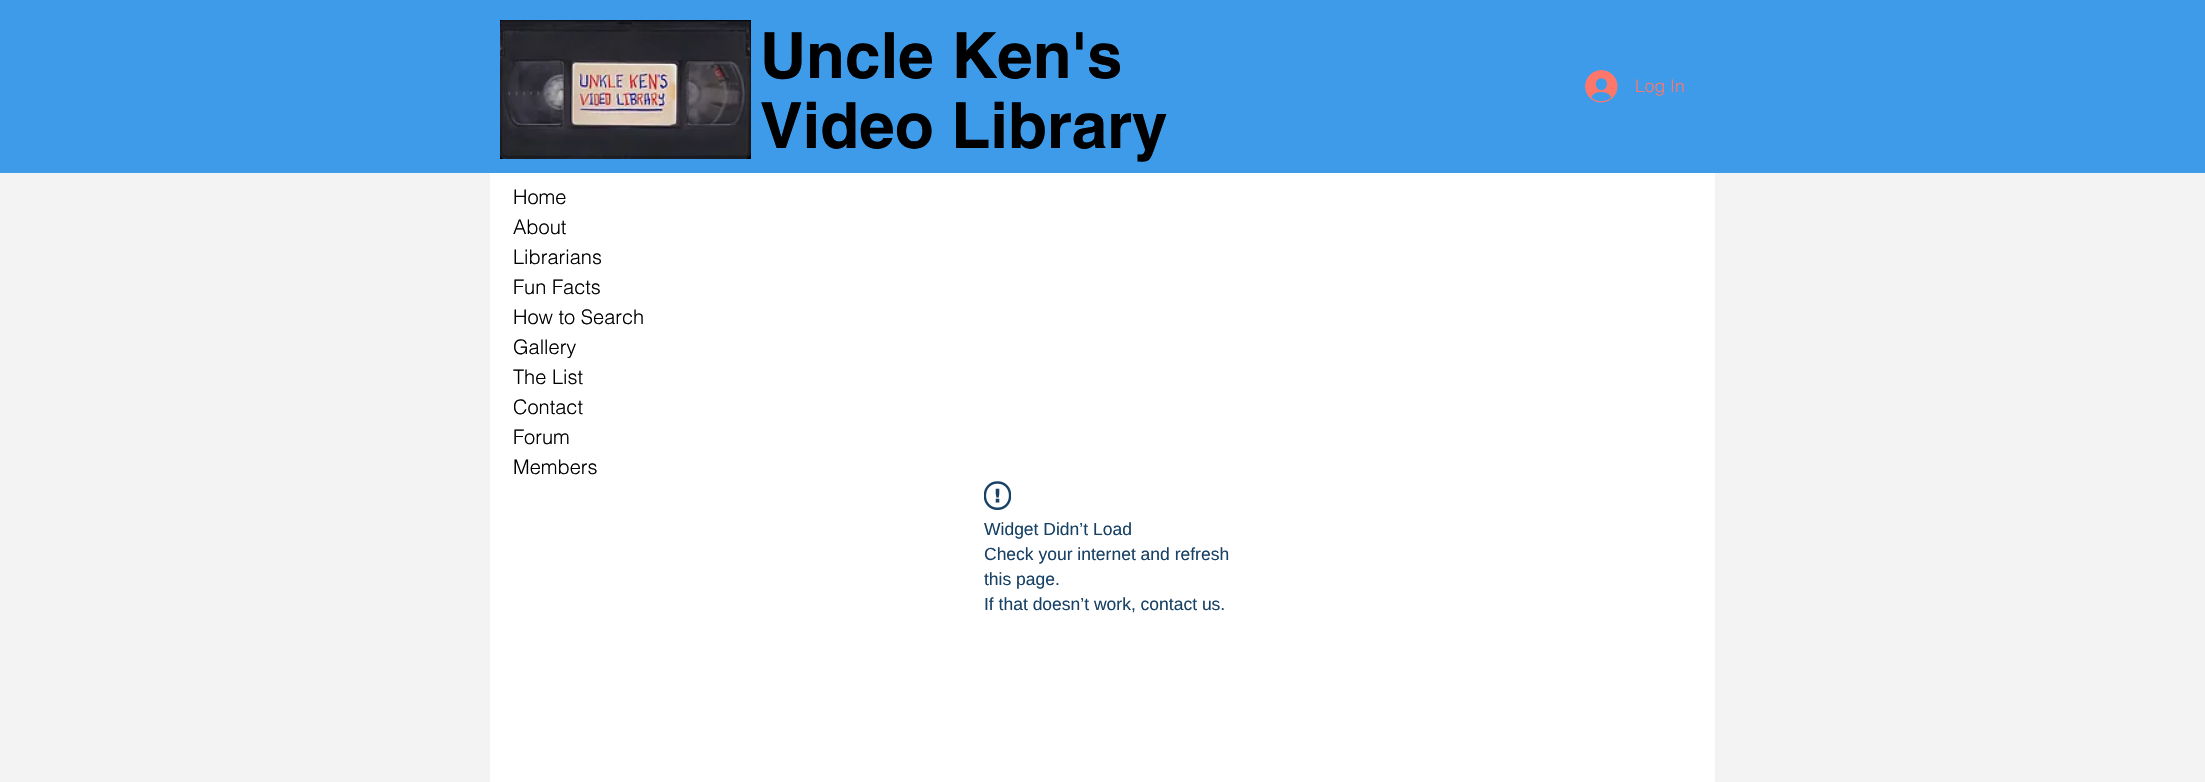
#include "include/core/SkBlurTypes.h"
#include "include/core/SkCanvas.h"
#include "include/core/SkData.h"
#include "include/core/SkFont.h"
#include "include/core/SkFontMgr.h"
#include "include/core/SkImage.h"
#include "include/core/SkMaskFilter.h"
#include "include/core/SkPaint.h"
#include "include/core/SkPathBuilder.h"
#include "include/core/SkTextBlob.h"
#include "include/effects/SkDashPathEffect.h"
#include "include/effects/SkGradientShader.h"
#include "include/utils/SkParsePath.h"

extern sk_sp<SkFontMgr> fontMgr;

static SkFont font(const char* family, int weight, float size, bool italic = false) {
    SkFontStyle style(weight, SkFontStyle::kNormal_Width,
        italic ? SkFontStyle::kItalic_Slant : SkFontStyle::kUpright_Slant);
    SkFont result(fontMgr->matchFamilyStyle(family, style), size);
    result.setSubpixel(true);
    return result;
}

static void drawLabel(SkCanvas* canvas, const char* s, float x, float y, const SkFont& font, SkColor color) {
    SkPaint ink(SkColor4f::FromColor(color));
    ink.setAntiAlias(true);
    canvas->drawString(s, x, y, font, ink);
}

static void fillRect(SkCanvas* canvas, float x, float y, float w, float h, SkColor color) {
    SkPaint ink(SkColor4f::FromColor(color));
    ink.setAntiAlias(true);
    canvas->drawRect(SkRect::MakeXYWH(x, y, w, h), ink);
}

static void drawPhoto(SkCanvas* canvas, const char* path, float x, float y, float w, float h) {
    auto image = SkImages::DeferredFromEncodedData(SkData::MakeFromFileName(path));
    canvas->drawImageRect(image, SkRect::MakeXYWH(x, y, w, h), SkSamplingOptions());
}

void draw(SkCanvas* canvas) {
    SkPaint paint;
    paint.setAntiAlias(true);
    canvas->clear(0xFFF3F3F3);
    fillRect(canvas, 0, 0, 2205, 173, 0xFF3D9BE9);
    drawPhoto(canvas, "assets/img1.png", 500, 20, 251, 139);
    SkFont font1 = font("helvetica", 700, 63.75f);
    drawLabel(canvas, "Uncle Ken's", 760, 78, font1, 0xFF000000);
    drawLabel(canvas, "Video Library", 760, 148, font1, 0xFF000000);
    drawPhoto(canvas, "assets/img2.png", 1585, 70, 33, 33);
    SkFont font2 = font("helvetica", 300, 17.5f);
    drawLabel(canvas, "Log In", 1635, 92, font2, 0xFFFF776B);
    fillRect(canvas, 490, 173, 1225, 609, 0xFFFFFFFF);
    SkFont font3 = font("helvetica", 300, 20);
    drawLabel(canvas, "Home", 513, 204, font3, 0xFF000000);
    drawLabel(canvas, "About", 513, 234, font3, 0xFF000000);
    drawLabel(canvas, "Librarians", 513, 264, font3, 0xFF000000);
    drawLabel(canvas, "Fun Facts", 513, 294, font3, 0xFF000000);
    drawLabel(canvas, "How to Search", 513, 324, font3, 0xFF000000);
    drawLabel(canvas, "Gallery", 513, 354, font3, 0xFF000000);
    drawLabel(canvas, "The List", 513, 384, font3, 0xFF000000);
    drawLabel(canvas, "Contact", 513, 414, font3, 0xFF000000);
    drawLabel(canvas, "Forum", 513, 444, font3, 0xFF000000);
    drawLabel(canvas, "Members", 513, 474, font3, 0xFF000000);
    drawPhoto(canvas, "assets/img3.png", 984, 481, 27, 29);
    SkFont font4 = font("Liberation Sans", 400, 17.5f);
    drawLabel(canvas, "Widget Didn’t Load", 984, 535, font4, 0xFF174165);
    drawLabel(canvas, "Check your internet and refresh", 984, 560, font4, 0xFF174165);
    drawLabel(canvas, "this page.", 984, 585, font4, 0xFF174165);
    drawLabel(canvas, "If that doesn’t work, contact us.", 984, 610, font4, 0xFF174165);
}
